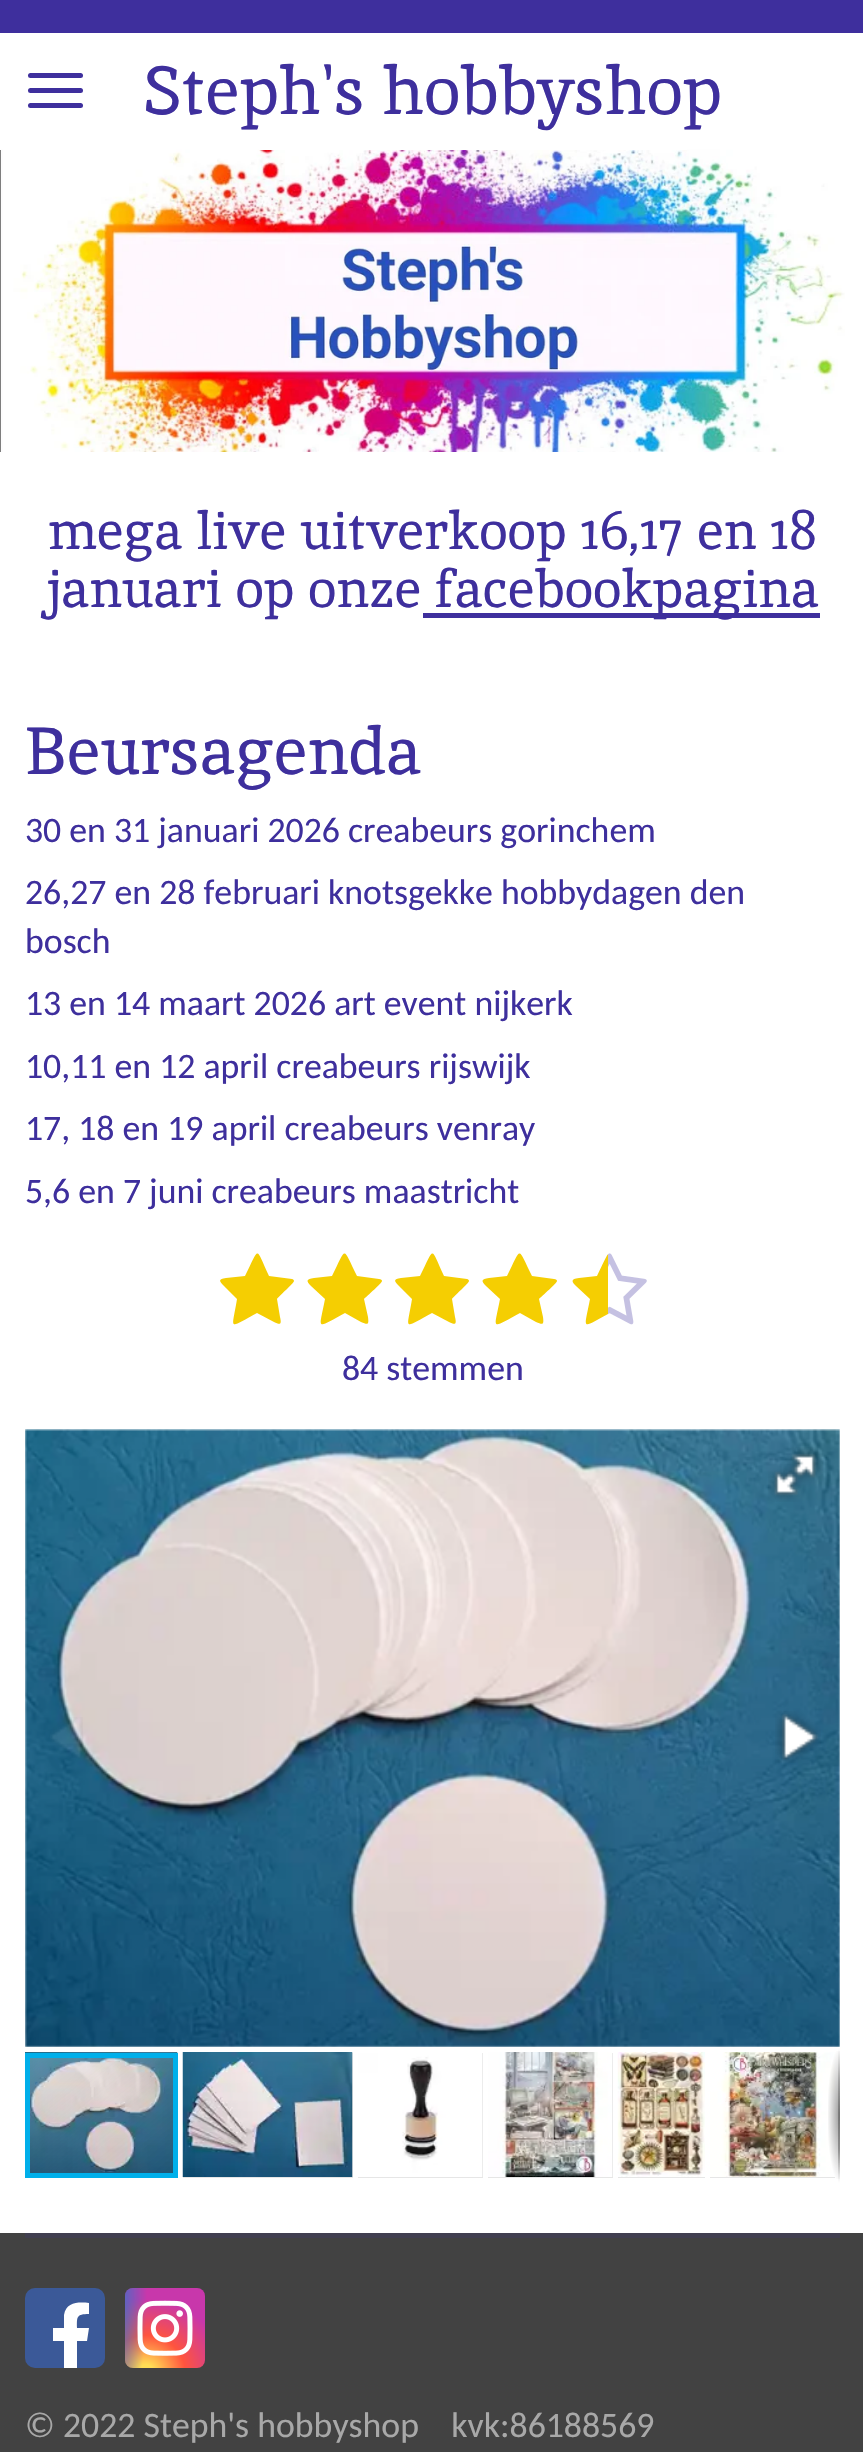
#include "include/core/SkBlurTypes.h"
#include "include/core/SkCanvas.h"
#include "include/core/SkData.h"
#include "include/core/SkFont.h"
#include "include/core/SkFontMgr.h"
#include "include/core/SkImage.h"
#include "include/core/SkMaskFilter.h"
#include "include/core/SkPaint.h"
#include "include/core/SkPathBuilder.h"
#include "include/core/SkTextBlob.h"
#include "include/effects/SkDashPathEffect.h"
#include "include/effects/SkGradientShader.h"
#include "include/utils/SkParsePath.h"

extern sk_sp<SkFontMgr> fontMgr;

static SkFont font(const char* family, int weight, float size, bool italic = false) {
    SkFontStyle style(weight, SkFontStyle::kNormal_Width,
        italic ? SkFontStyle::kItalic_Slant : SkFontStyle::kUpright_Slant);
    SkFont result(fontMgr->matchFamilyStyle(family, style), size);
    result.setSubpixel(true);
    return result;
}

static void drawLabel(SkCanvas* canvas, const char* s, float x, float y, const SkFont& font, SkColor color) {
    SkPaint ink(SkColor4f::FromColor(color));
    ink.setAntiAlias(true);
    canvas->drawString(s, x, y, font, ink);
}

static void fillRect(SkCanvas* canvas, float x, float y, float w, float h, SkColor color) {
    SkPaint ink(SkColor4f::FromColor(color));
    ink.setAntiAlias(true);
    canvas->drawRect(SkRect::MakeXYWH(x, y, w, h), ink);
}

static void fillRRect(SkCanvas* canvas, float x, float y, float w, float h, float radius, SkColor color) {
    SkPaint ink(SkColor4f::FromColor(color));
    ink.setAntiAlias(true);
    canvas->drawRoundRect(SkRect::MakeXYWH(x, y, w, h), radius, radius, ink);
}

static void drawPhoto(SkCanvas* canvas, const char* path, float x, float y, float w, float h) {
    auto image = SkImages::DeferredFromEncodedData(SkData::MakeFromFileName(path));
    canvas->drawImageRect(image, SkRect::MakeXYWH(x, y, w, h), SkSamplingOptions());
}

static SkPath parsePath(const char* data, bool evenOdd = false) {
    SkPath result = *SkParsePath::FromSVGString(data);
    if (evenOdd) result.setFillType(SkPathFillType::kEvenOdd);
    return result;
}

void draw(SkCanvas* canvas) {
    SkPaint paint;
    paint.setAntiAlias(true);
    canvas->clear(0xFFFFFFFF);
    fillRect(canvas, 0, 0, 863, 33, 0xFF3E2F9D);
    drawPhoto(canvas, "assets/img1.png", 0, 149, 845, 303);
    fillRect(canvas, 0, 149, 1, 1, 0xFFFFFFFF);
    fillRRect(canvas, 28, 88, 55, 5, 2.5f, 0xFF3E2F9D);
    fillRRect(canvas, 28, 73, 55, 5, 2.5f, 0xFF3E2F9D);
    fillRRect(canvas, 28, 103, 55, 5, 2.5f, 0xFF3E2F9D);
    fillRect(canvas, 259, 149, 428, 1, 0xFFFFFFFF);
    SkFont font1 = font("Inika", 400, 67.5f);
    drawLabel(canvas, "Steph's hobbyshop", 143, 114, font1, 0xFF3E2F9D);
    SkFont font2 = font("Inika", 400, 52.75f);
    drawLabel(canvas, "mega live uitverkoop 16,17 en 18", 48, 549, font2, 0xFF3E2F9D);
    drawLabel(canvas, "januari op onze", 46, 607, font2, 0xFF3E2F9D);
    fillRect(canvas, 423, 613, 397, 5, 0xFF3E2F9D);
    drawLabel(canvas, "facebookpagina", 435, 607, font2, 0xFF3E2F9D);
    SkFont font3 = font("Inika", 400, 66.25f);
    drawLabel(canvas, "Beursagenda", 25, 774, font3, 0xFF3E2F9D);
    SkFont font4 = font("Carlito", 400, 35.75f);
    drawLabel(canvas, "30 en 31 januari 2026 creabeurs gorinchem", 25, 842, font4, 0xFF3E2F9D);
    drawLabel(canvas, "26,27 en 28 februari knotsgekke hobbydagen den", 25, 904, font4, 0xFF3E2F9D);
    drawLabel(canvas, "bosch", 25, 953, font4, 0xFF3E2F9D);
    drawLabel(canvas, "13 en 14 maart 2026 art event nijkerk", 25, 1015, font4, 0xFF3E2F9D);
    drawLabel(canvas, "10,11 en 12 april creabeurs rijswijk", 25, 1078, font4, 0xFF3E2F9D);
    drawLabel(canvas, "17, 18 en 19 april creabeurs venray", 25, 1140, font4, 0xFF3E2F9D);
    drawLabel(canvas, "5,6 en 7 juni creabeurs maastricht", 25, 1203, font4, 0xFF3E2F9D);
    paint.setColor(0xFFF5CE02);
    canvas->drawPath(parsePath("M294 1281C294 1283 279 1296 277 1299L280 1317C282 1325 280 1325 274 1322L257 1313C227 1329 232 1331 237 1299L224 1286C219 1281 218 1279 226 1278L245 1276C260 1246 255 1246 269 1276L292 1279C293 1279 294 1280 294 1281Z"), paint);
    canvas->drawPath(parsePath("M382 1281C382 1283 367 1296 364 1299L368 1317C369 1325 368 1325 361 1322L345 1313C315 1329 319 1331 325 1299L311 1286C306 1281 306 1279 314 1278L332 1276C347 1246 342 1246 357 1276L379 1279C381 1279 382 1280 382 1281Z"), paint);
    canvas->drawPath(parsePath("M469 1281C469 1283 454 1296 452 1299L455 1317C457 1325 455 1325 449 1322L432 1313C402 1329 407 1331 412 1299L399 1286C394 1281 393 1279 401 1278L420 1276C435 1246 430 1246 444 1276L467 1279C468 1279 469 1280 469 1281Z"), paint);
    canvas->drawPath(parsePath("M557 1281C557 1283 542 1296 539 1299L543 1317C544 1325 543 1325 536 1322L520 1313C490 1329 494 1331 500 1299L486 1286C481 1281 481 1279 489 1278L507 1276C522 1246 517 1246 532 1276L554 1279C556 1279 557 1280 557 1281Z"), paint);
    canvas->save();
    canvas->clipRect(SkRect::MakeXYWH(568, 1253, 40, 80));
    canvas->drawPath(parsePath("M647 1281C647 1283 632 1296 629 1299L633 1317C634 1325 633 1325 626 1322L610 1313C580 1329 584 1331 590 1299L576 1286C571 1281 571 1279 579 1278L597 1276C612 1246 607 1246 622 1276L644 1279C646 1279 647 1280 647 1281Z"), paint);
    canvas->restore();
    drawPhoto(canvas, "assets/img2.png", 608, 1253, 39, 72);
    drawLabel(canvas, "84 stemmen", 342, 1380, font4, 0xFF3E2F9D);
    drawPhoto(canvas, "assets/img3.png", 25, 1429, 815, 618);
    drawPhoto(canvas, "assets/img4.png", 768, 1447, 55, 55);
    drawPhoto(canvas, "assets/img5.png", 50, 1717, 33, 41);
    drawPhoto(canvas, "assets/img6.png", 775, 1711, 46, 52);
    fillRect(canvas, 710, 2177, 125, 1, 0xFFE6E6E6);
    drawPhoto(canvas, "assets/img11.png", 710, 2052, 125, 125);
    {
        const SkColor colors[] = {0x66000000, 0x00000000};
        const float stops[] = {0, 1};
        SkMatrix m = SkMatrix::Translate(840, 2115).preScale(13, 68);
        paint.setShader(SkGradientShader::MakeRadial({0, 0}, 1, colors, stops, 2, SkTileMode::kClamp, 0, &m));
        paint.setAlpha(255);
    }
    canvas->drawRect(SkRect::MakeXYWH(828, 2051, 12, 128), paint);
    {
        const SkColor colors[] = {0x00000000, 0x33000000, 0x4D000000, 0x00000000};
        const float stops[] = {0, 0.25f, 0.75f, 1};
        const SkPoint ends[] = {{839, 2048}, {839, 2183}};
        paint.setShader(SkGradientShader::MakeLinear(ends, colors, stops, 4, SkTileMode::kClamp));
        paint.setAlpha(255);
    }
    canvas->drawRect(SkRect::MakeXYWH(838, 2048, 2, 135), paint);
    drawPhoto(canvas, "assets/img7.png", 25, 2052, 153, 121);
    fillRect(canvas, 183, 2053, 170, 125, 0xFFE6E6E6);
    drawPhoto(canvas, "assets/img8.png", 182, 2052, 171, 125);
    fillRect(canvas, 488, 2053, 125, 125, 0xFFE6E6E6);
    drawPhoto(canvas, "assets/img9.png", 488, 2052, 125, 125);
    fillRect(canvas, 618, 2177, 87, 1, 0xFFE6E6E6);
    drawPhoto(canvas, "assets/img10.png", 617, 2052, 88, 125);
    paint.setStroke(true);
    paint.setStrokeWidth(5);
    paint.setShader(nullptr);
    paint.setColor(0xFF00AFEA);
    canvas->drawRect(SkRect::MakeXYWH(27.5f, 2055.5f, 148, 120), paint);
    fillRect(canvas, 358, 2053, 125, 125, 0xFFE6E6E6);
    drawPhoto(canvas, "assets/img12.png", 358, 2053, 125, 124);
    fillRect(canvas, 0, 2233, 863, 219, 0xFF424242);
    fillRect(canvas, 25, 2233, 815, 5, 0xFF413F50);
    fillRRect(canvas, 25, 2288, 80, 80, 10, 0xFF3B5998);
    paint.setStroke(false);
    paint.setColor(0xFFFFFFFF);
    canvas->drawPath(parsePath("M87 2341H77V2368H64V2341H53V2328H64V2315C66 2302 78 2302 89 2303V2314C76 2314 77 2317 77 2328H89Z"), paint);
    {
        const SkColor colors[] = {0xFFFFDD55, 0xFFFFDD55, 0xFFFF543E, 0xFFC837AB};
        const float stops[] = {0, 0.1f, 0.5f, 1};
        SkMatrix m = SkMatrix::Translate(146, 2372).preScale(78, 73);
        paint.setShader(SkGradientShader::MakeRadial({0, 0}, 1, colors, stops, 4, SkTileMode::kClamp, 0, &m));
        paint.setAlpha(255);
    }
    canvas->drawRoundRect(SkRect::MakeXYWH(125, 2288, 80, 80), 8, 8, paint);
    {
        const SkColor colors[] = {0xFF3771C8, 0xFF3771C8, 0x003771C8};
        const float stops[] = {0, 0.13f, 1};
        SkMatrix m = SkMatrix::Translate(112, 2293).preScale(35, 144);
        paint.setShader(SkGradientShader::MakeRadial({0, 0}, 1, colors, stops, 3, SkTileMode::kClamp, 0, &m));
        paint.setAlpha(255);
    }
    canvas->drawRoundRect(SkRect::MakeXYWH(125, 2288, 80, 80), 8, 8, paint);
    drawPhoto(canvas, "assets/img13.png", 137, 2300, 56, 56);
    drawLabel(canvas, "© 2022 Steph's hobbyshop    kvk:86188569", 25, 2437, font4, 0xFFA8A8A8);
}
